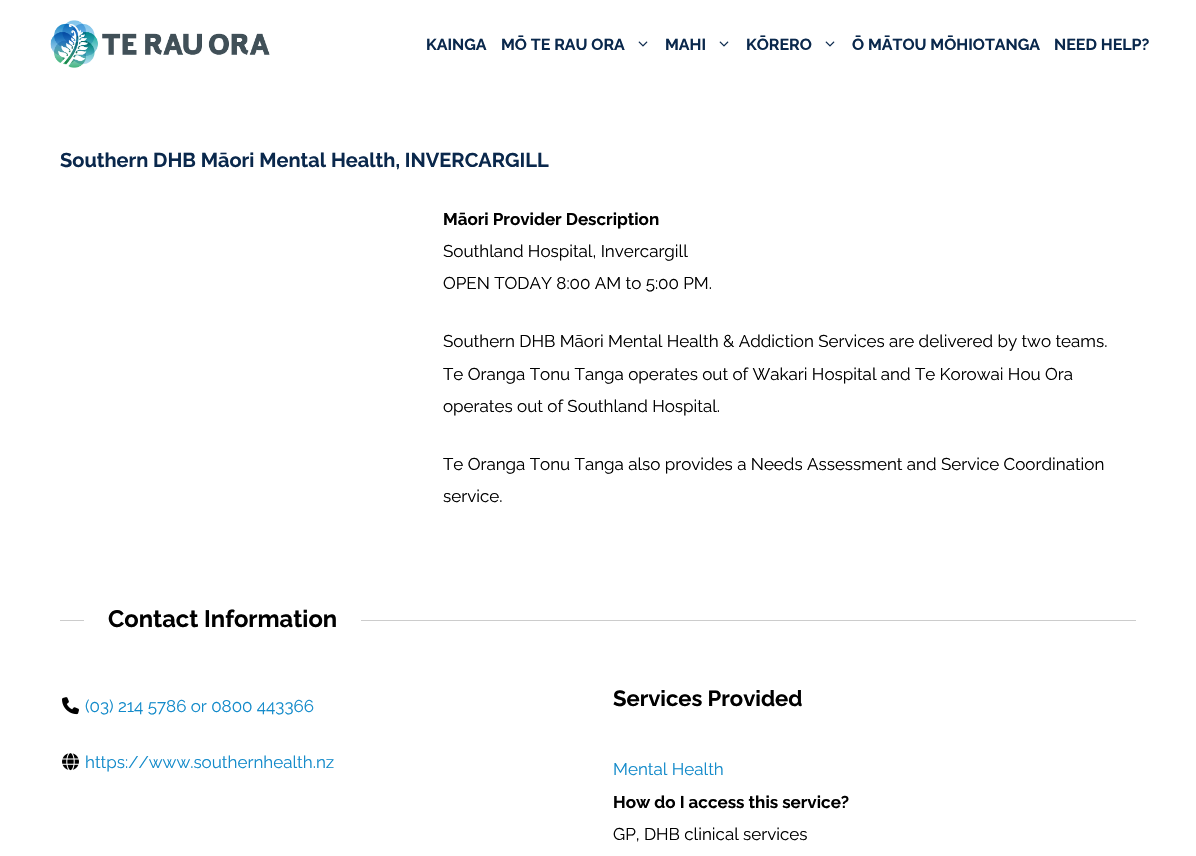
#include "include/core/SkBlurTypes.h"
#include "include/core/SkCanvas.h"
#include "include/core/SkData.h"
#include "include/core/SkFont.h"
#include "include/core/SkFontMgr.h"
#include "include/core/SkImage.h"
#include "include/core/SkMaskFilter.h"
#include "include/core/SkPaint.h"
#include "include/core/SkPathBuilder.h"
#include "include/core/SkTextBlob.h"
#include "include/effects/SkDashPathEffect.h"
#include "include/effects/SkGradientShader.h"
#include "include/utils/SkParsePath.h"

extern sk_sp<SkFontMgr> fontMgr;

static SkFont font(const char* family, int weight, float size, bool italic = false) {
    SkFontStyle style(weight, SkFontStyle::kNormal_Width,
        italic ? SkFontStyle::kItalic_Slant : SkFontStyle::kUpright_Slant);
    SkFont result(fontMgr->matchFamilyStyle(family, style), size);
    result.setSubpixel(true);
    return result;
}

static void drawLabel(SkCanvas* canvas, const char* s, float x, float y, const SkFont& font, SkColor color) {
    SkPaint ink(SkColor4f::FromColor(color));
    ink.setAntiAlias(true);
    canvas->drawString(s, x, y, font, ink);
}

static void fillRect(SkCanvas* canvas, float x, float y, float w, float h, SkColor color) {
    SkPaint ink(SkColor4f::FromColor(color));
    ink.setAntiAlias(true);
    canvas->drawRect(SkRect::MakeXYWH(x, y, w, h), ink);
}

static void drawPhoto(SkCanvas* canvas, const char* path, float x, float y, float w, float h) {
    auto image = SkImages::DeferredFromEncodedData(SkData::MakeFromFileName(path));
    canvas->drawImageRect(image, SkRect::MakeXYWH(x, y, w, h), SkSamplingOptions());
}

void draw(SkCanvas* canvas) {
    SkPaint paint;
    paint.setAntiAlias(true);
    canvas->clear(0xFFFFFFFF);
    drawPhoto(canvas, "assets/img1.png", 50, 20, 220, 48);
    SkFont font1 = font("Raleway", 700, 16);
    drawLabel(canvas, "KAINGA", 426, 50, font1, 0xFF0A284C);
    drawLabel(canvas, "MŌ TE RAU ORA", 501, 50, font1, 0xFF0A284C);
    drawPhoto(canvas, "assets/img2.png", 638, 41, 10, 6);
    drawLabel(canvas, "MAHI", 665, 50, font1, 0xFF0A284C);
    drawPhoto(canvas, "assets/img2.png", 719, 41, 10, 6);
    drawLabel(canvas, "KŌRERO", 746, 50, font1, 0xFF0A284C);
    drawPhoto(canvas, "assets/img2.png", 825, 41, 10, 6);
    drawLabel(canvas, "Ō MĀTOU MŌHIOTANGA", 852, 50, font1, 0xFF0A284C);
    drawLabel(canvas, "NEED HELP?", 1054, 50, font1, 0xFF0A284C);
    SkFont font2 = font("Raleway", 700, 20);
    drawLabel(canvas, "Southern DHB Māori Mental Health, INVERCARGILL", 60, 167, font2, 0xFF0A284C);
    SkFont font3 = font("Raleway", 700, 17);
    drawLabel(canvas, "Māori Provider Description", 443, 225, font3, 0xFF000000);
    SkFont font4 = font("Raleway", 400, 17);
    drawLabel(canvas, "Southland Hospital, Invercargill", 443, 257, font4, 0xFF000000);
    drawLabel(canvas, "OPEN TODAY 8:00 AM to 5:00 PM.", 443, 289, font4, 0xFF000000);
    drawLabel(canvas, "Southern DHB Māori Mental Health & Addiction Services are delivered by two teams.", 443, 347, font4, 0xFF000000);
    drawLabel(canvas, "Te Oranga Tonu Tanga operates out of Wakari Hospital and Te Korowai Hou Ora", 443, 380, font4, 0xFF000000);
    drawLabel(canvas, "operates out of Southland Hospital.", 443, 412, font4, 0xFF000000);
    drawLabel(canvas, "Te Oranga Tonu Tanga also provides a Needs Assessment and Service Coordination", 443, 470, font4, 0xFF000000);
    drawLabel(canvas, "service.", 443, 502, font4, 0xFF000000);
    fillRect(canvas, 60, 620, 1076, 1, 0xFFCCCCCC);
    fillRect(canvas, 84, 620, 277, 1, 0xFFFFFFFF);
    SkFont font5 = font("Raleway", 700, 23.75f);
    drawLabel(canvas, "Contact Information", 108, 627, font5, 0xFF000000);
    drawPhoto(canvas, "assets/img3.png", 62, 697, 17, 18);
    drawLabel(canvas, "(03) 214 5786 or 0800 443366", 85, 712, font4, 0xFF128ACA);
    drawPhoto(canvas, "assets/img4.png", 62, 753, 17, 18);
    drawLabel(canvas, "https://www.southernhealth.nz", 85, 768, font4, 0xFF128ACA);
    SkFont font6 = font("Raleway", 700, 22);
    drawLabel(canvas, "Services Provided", 613, 706, font6, 0xFF000000);
    drawLabel(canvas, "Mental Health", 613, 775, font4, 0xFF128ACA);
    drawLabel(canvas, "How do I access this service?", 613, 808, font3, 0xFF000000);
    drawLabel(canvas, "GP, DHB clinical services", 613, 840, font4, 0xFF000000);
}
